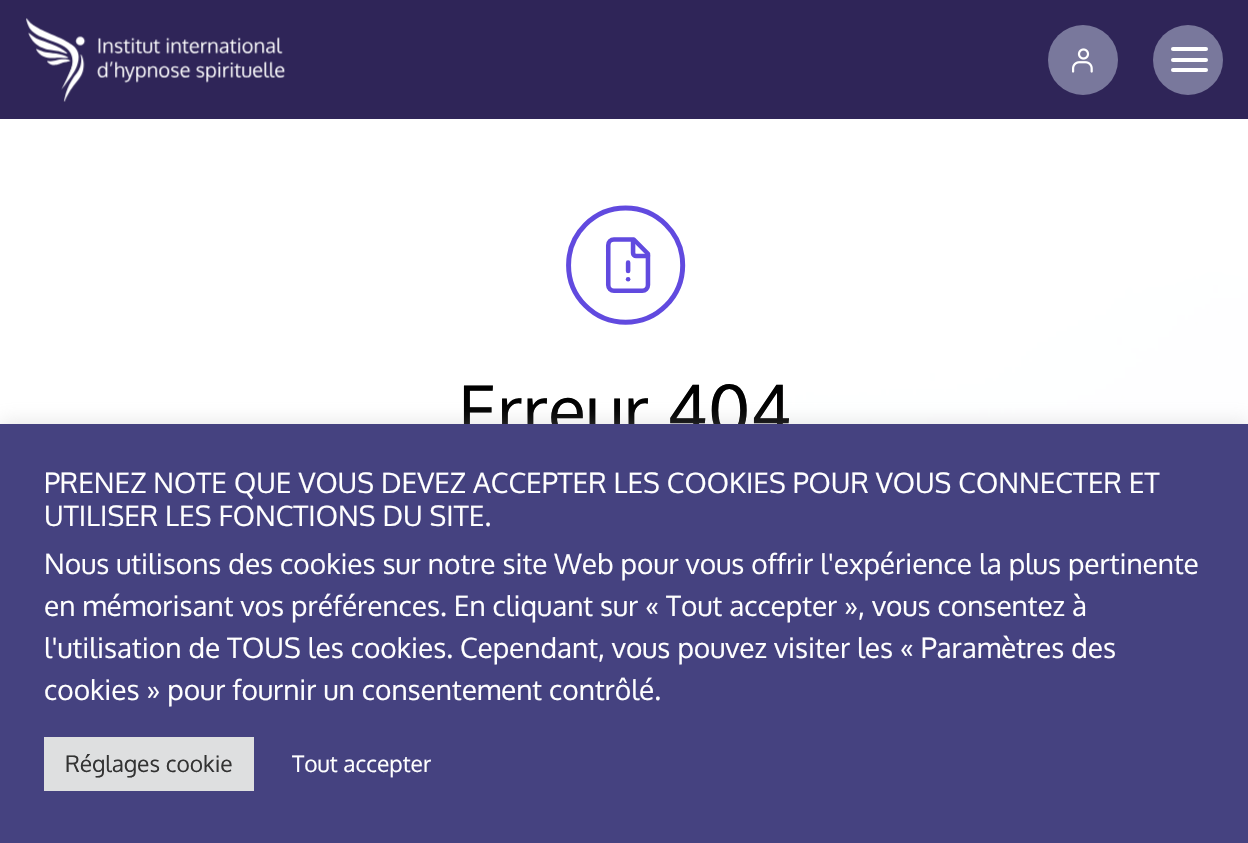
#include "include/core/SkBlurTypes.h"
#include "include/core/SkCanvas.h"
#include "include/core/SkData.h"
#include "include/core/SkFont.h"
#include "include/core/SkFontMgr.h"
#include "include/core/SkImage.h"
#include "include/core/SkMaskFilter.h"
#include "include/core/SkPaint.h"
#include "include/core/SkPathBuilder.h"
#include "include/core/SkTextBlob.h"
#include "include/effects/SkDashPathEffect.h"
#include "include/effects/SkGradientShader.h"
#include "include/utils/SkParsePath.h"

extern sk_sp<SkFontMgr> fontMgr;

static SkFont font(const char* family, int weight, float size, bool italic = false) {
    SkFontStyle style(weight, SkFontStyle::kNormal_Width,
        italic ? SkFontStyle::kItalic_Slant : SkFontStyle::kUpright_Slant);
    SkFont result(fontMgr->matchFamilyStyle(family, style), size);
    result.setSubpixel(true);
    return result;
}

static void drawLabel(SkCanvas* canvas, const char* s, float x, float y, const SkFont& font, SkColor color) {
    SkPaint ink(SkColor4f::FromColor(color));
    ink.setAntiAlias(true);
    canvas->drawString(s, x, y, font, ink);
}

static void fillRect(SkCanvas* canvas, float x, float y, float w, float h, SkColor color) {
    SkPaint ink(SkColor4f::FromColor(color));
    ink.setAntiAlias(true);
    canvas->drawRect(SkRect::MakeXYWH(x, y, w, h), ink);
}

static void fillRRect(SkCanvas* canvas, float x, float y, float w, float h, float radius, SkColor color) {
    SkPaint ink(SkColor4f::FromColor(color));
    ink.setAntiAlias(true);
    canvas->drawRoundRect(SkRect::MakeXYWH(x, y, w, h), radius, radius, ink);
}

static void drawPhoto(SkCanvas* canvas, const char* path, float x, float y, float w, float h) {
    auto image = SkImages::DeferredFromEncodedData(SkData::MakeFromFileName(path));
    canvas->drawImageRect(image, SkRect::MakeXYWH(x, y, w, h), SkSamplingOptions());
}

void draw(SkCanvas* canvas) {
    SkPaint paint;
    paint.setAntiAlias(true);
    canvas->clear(0xFFFFFFFF);
    drawPhoto(canvas, "assets/img1.png", 0, 271, 1248, 153);
    fillRect(canvas, 0, 0, 1248, 119, 0xFF2F2558);
    drawPhoto(canvas, "assets/img2.png", 26, 18, 259, 84);
    paint.setColor(0xFF79789C);
    canvas->drawCircle(1083, 60, 35, paint);
    drawPhoto(canvas, "assets/img3.png", 1072, 48, 21, 25);
    canvas->drawCircle(1188, 60, 35, paint);
    fillRRect(canvas, 1171, 47, 37, 4, 2, 0xFFFFFFFF);
    fillRRect(canvas, 1171, 58, 37, 4, 2, 0xFFFFFFFF);
    fillRRect(canvas, 1171, 68, 37, 4, 2, 0xFFFFFFFF);
    drawPhoto(canvas, "assets/img4.png", 566, 205, 120, 120);
    SkFont font1 = font("Oxygen", 400, 70);
    drawLabel(canvas, "Erreur 404", 458, 436, font1, 0xFF000000);
    paint.setColor(0x4DACABAB);
    paint.setMaskFilter(SkMaskFilter::MakeBlur(kNormal_SkBlurStyle, 9));
    canvas->drawRect(SkRect::MakeXYWH(0, 422, 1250, 420), paint);
    paint.setMaskFilter(nullptr);
    fillRect(canvas, 0, 424, 1248, 419, 0xFF454280);
    SkFont font2 = font("Oxygen", 400, 28);
    drawLabel(canvas, "PRENEZ NOTE QUE VOUS DEVEZ ACCEPTER LES COOKIES POUR VOUS CONNECTER ET", 44, 493, font2, 0xFFFFFFFF);
    drawLabel(canvas, "UTILISER LES FONCTIONS DU SITE.", 44, 526, font2, 0xFFFFFFFF);
    drawLabel(canvas, "Nous utilisons des cookies sur notre site Web pour vous offrir l'expérience la plus pertinente", 44, 574, font2, 0xFFFFFFFF);
    drawLabel(canvas, "en mémorisant vos préférences. En cliquant sur « Tout accepter », vous consentez à", 44, 616, font2, 0xFFFFFFFF);
    drawLabel(canvas, "l'utilisation de TOUS les cookies. Cependant, vous pouvez visiter les « Paramètres des", 44, 658, font2, 0xFFFFFFFF);
    drawLabel(canvas, "cookies » pour fournir un consentement contrôlé.", 44, 700, font2, 0xFFFFFFFF);
    fillRect(canvas, 44, 737, 210, 54, 0xFFDEDFE0);
    SkFont font3 = font("Oxygen", 400, 22.75f);
    drawLabel(canvas, "Réglages cookie", 65, 772, font3, 0xFF333333);
    drawLabel(canvas, "Tout accepter", 292, 772, font3, 0xFFFFFFFF);
}
